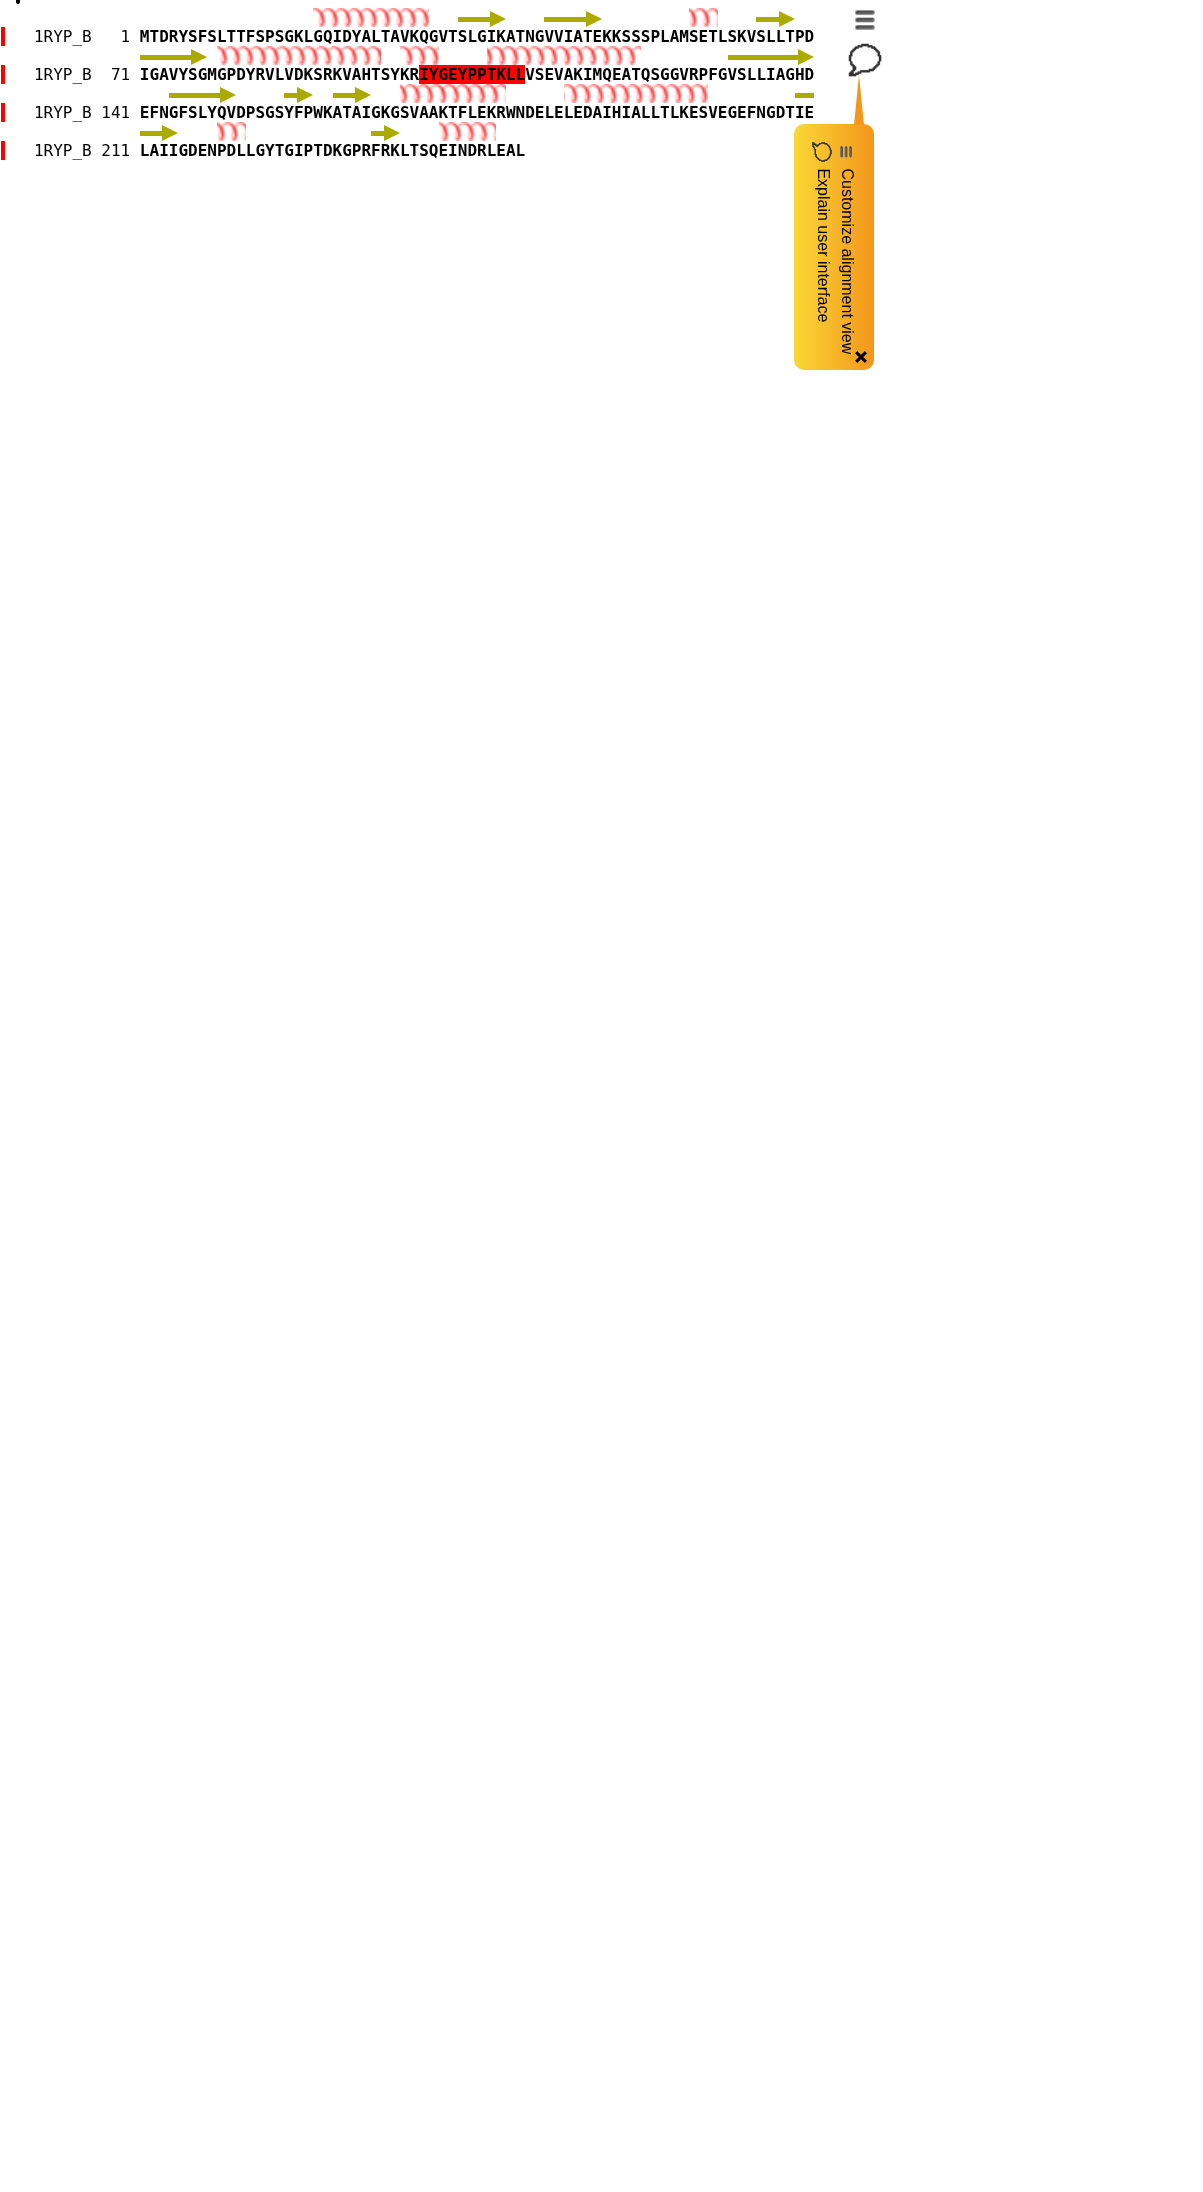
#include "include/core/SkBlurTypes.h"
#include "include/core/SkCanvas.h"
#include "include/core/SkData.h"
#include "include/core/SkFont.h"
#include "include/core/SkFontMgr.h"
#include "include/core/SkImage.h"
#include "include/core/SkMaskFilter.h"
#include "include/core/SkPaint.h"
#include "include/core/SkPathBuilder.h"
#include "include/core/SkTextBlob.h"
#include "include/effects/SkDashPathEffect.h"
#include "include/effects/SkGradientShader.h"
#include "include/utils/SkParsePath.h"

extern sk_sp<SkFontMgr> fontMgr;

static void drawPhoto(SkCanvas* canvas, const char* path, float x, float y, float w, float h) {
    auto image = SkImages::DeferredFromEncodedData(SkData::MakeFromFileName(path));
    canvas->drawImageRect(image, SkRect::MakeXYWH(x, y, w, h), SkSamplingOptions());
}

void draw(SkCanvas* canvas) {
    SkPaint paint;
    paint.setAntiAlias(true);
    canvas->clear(0xFFFFFFFF);
    drawPhoto(canvas, "assets/img1.png", 1, 0, 881, 370);
}
